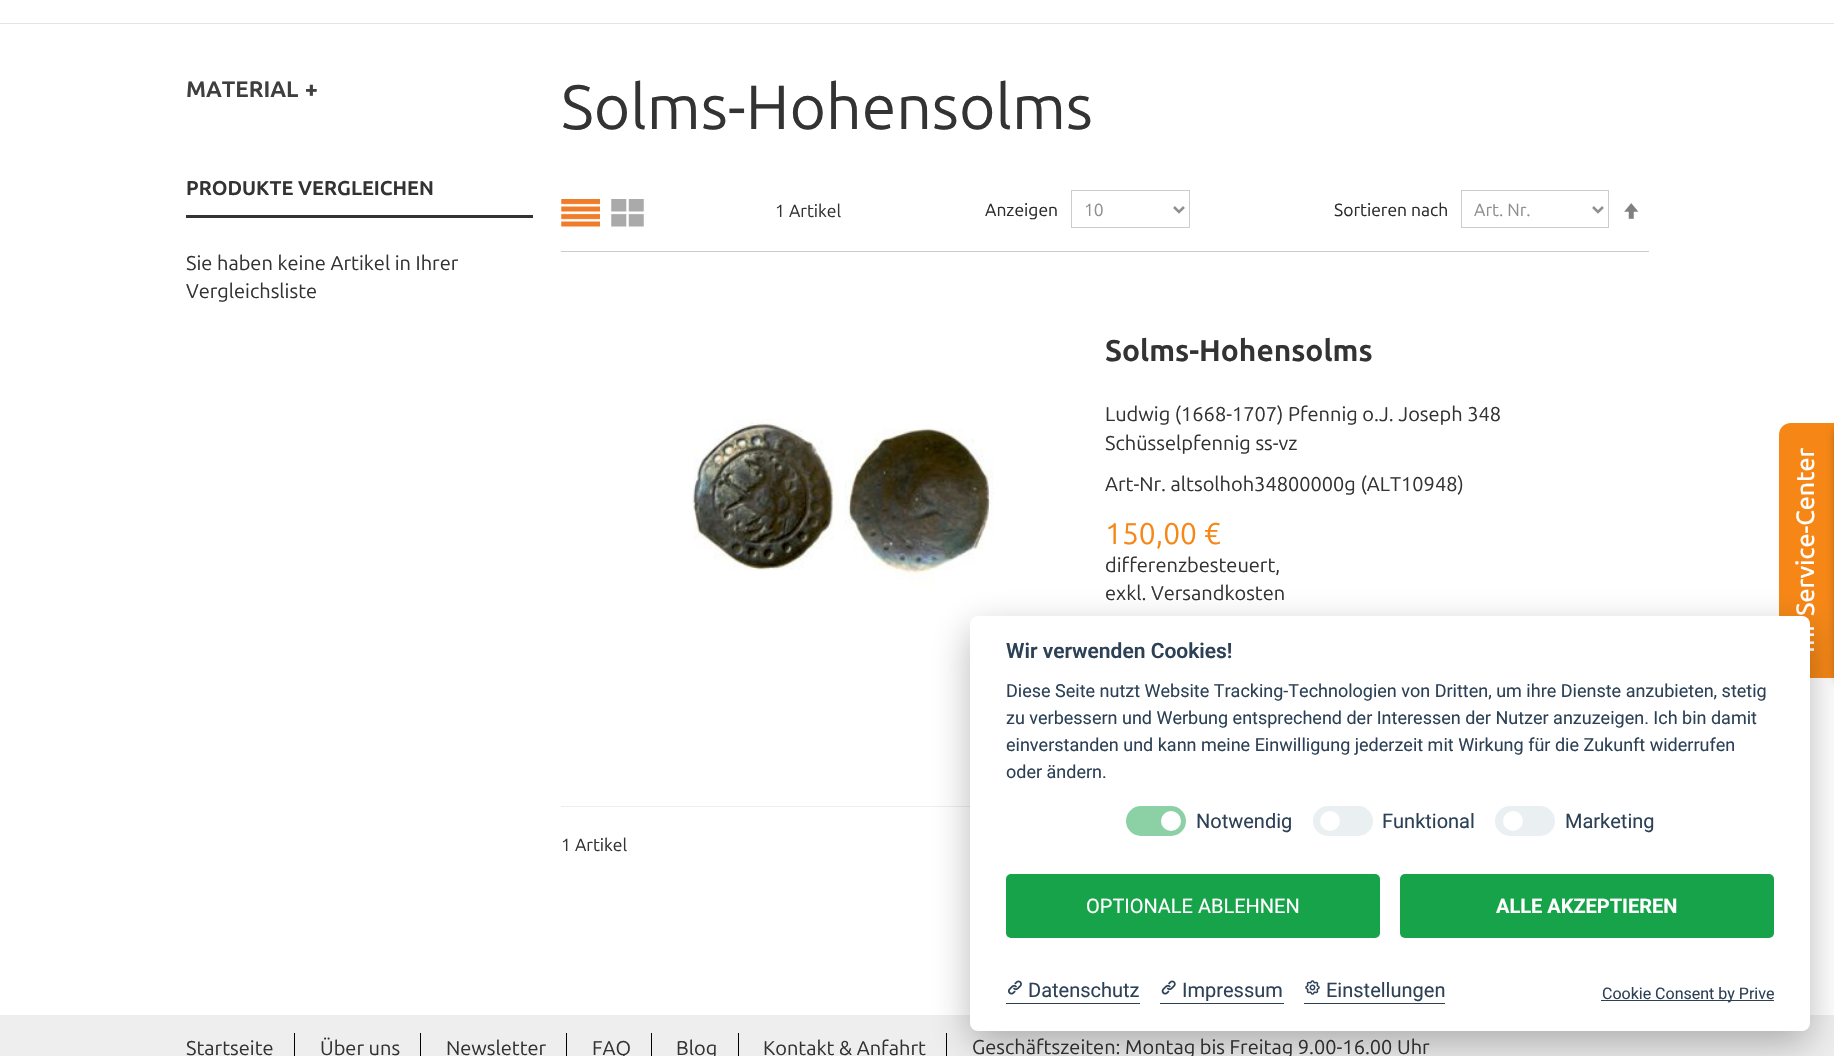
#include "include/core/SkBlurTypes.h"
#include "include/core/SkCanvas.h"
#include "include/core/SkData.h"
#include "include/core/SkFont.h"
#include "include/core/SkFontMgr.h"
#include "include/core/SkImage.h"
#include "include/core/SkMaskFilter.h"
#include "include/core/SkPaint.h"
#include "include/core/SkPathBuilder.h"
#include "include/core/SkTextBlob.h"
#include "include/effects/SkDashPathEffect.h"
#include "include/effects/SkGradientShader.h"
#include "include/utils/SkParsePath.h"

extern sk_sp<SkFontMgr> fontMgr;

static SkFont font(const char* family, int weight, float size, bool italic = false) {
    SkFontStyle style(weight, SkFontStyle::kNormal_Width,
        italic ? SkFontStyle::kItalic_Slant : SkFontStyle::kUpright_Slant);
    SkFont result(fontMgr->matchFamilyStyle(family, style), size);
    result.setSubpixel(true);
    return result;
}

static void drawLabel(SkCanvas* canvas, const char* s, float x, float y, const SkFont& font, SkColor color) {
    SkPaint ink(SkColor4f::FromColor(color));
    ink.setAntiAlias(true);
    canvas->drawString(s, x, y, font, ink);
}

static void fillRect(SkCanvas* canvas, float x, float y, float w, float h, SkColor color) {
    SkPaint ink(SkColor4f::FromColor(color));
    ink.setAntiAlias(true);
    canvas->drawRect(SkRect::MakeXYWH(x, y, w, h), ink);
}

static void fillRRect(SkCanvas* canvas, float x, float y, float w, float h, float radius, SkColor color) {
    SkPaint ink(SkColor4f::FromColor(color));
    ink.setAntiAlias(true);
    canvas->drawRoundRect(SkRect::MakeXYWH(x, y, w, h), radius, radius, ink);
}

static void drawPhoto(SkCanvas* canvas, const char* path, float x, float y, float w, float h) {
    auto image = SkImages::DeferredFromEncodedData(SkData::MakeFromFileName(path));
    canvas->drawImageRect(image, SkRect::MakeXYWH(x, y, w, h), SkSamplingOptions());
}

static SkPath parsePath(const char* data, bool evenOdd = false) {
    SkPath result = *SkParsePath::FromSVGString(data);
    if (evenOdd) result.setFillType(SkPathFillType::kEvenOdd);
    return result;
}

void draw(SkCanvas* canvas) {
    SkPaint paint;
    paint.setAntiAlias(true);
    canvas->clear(0xFFFFFFFF);
    fillRect(canvas, 0, 23, 1834, 1, 0xFFE5E5E5);
    SkFont font1 = font("Ubuntu", 700, 22.5f);
    drawLabel(canvas, "MATERIAL", 186, 97, font1, 0xFF3F3F3F);
    SkFont font2 = font("Ubuntu", 800, 22.5f);
    drawLabel(canvas, "+", 305, 97, font2, 0xFF3F3F3F);
    SkFont font3 = font("Ubuntu", 400, 62.5f);
    drawLabel(canvas, "Solms-Hohensolms", 561, 129, font3, 0xFF333333);
    fillRect(canvas, 561, 251, 1088, 1, 0xFFCCCCCC);
    drawPhoto(canvas, "assets/img1.png", 561, 199, 39, 28);
    drawPhoto(canvas, "assets/img2.png", 611, 199, 33, 28);
    SkFont font4 = font("Ubuntu", 400, 17.5f);
    drawLabel(canvas, "1 Artikel", 775, 217, font4, 0xFF333333);
    drawLabel(canvas, "Anzeigen", 985, 216, font4, 0xFF2B2B2B);
    paint.setStroke(true);
    paint.setStrokeWidth(1);
    paint.setColor(0xFFCCCCCC);
    canvas->drawRect(SkRect::MakeXYWH(1071.5f, 190.5f, 118, 37), paint);
    paint.setStrokeWidth(2.5f);
    paint.setColor(0xFF908F8F);
    canvas->drawPath(parsePath("M1174 207L1179 212L1184 207"), paint);
    drawLabel(canvas, "10", 1084, 216, font4, 0xFF908F8F);
    drawLabel(canvas, "Sortieren nach", 1334, 216, font4, 0xFF2B2B2B);
    paint.setStrokeWidth(1);
    paint.setColor(0xFFCCCCCC);
    canvas->drawRect(SkRect::MakeXYWH(1461.5f, 190.5f, 147, 37), paint);
    paint.setStrokeWidth(2.5f);
    paint.setColor(0xFF908F8F);
    canvas->drawPath(parsePath("M1593 207L1598 212L1603 207"), paint);
    drawLabel(canvas, "Art. Nr.", 1474, 216, font4, 0xFF908F8F);
    drawPhoto(canvas, "assets/img3.png", 1624, 203, 15, 16);
    drawPhoto(canvas, "assets/img4.png", 692, 419, 302, 166);
    SkFont font5 = font("Ubuntu", 700, 30);
    drawLabel(canvas, "Solms-Hohensolms", 1105, 361, font5, 0xFF333333);
    SkFont font6 = font("Ubuntu", 400, 20);
    drawLabel(canvas, "Ludwig (1668-1707) Pfennig o.J. Joseph 348", 1105, 421, font6, 0xFF333333);
    drawLabel(canvas, "Schüsselpfennig ss-vz", 1105, 450, font6, 0xFF333333);
    drawLabel(canvas, "Art-Nr. altsolhoh34800000g (ALT10948)", 1105, 491, font6, 0xFF333333);
    SkFont font7 = font("Ubuntu", 400, 30);
    drawLabel(canvas, "150,00 €", 1105, 544, font7, 0xFFF68716);
    drawLabel(canvas, "differenzbesteuert,", 1105, 572, font6, 0xFF333333);
    drawLabel(canvas, "exkl. Versandkosten", 1105, 600, font6, 0xFF333333);
    fillRect(canvas, 561, 806, 409, 1, 0xFFEDEDED);
    drawLabel(canvas, "1 Artikel", 561, 851, font4, 0xFF333333);
    fillRect(canvas, 186, 215, 347, 3, 0xFF333333);
    SkFont font8 = font("Ubuntu", 700, 20);
    drawLabel(canvas, "PRODUKTE VERGLEICHEN", 186, 195, font8, 0xFF333333);
    drawLabel(canvas, "Sie haben keine Artikel in Ihrer", 186, 270, font6, 0xFF333333);
    drawLabel(canvas, "Vergleichsliste", 186, 298, font6, 0xFF333333);
    fillRect(canvas, 0, 1015, 1834, 41, 0xFFEEEEEE);
    fillRect(canvas, 294, 1033, 1, 23, 0xFF000000);
    drawLabel(canvas, "Startseite", 186, 1055, font6, 0xFF333333);
    fillRect(canvas, 420, 1033, 1, 23, 0xFF000000);
    drawLabel(canvas, "Über uns", 320, 1055, font6, 0xFF333333);
    fillRect(canvas, 566, 1033, 1, 23, 0xFF000000);
    drawLabel(canvas, "Newsletter", 446, 1055, font6, 0xFF333333);
    fillRect(canvas, 651, 1033, 1, 23, 0xFF000000);
    drawLabel(canvas, "FAQ", 592, 1055, font6, 0xFF333333);
    fillRect(canvas, 738, 1033, 1, 23, 0xFF000000);
    drawLabel(canvas, "Blog", 676, 1055, font6, 0xFF333333);
    fillRect(canvas, 946, 1033, 1, 23, 0xFF000000);
    drawLabel(canvas, "Kontakt & Anfahrt", 763, 1055, font6, 0xFF333333);
    drawLabel(canvas, "Geschäftszeiten: Montag bis Freitag 9.00-16.00 Uhr", 972, 1054, font6, 0xFF333333);
    paint.setStroke(false);
    paint.setColor(0xFFF68716);
    canvas->drawPath(parsePath("M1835 678H1791C1784 678 1779 673 1779 666V435C1779 428 1784 423 1791 423H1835Z"), paint);
    SkFont font9 = font("Ubuntu", 500, 25);
    canvas->save();
    canvas->rotate(-90, 1814, 653);
    drawLabel(canvas, "Ihr Service-Center", 1814, 653, font9, 0xFFFFFFFF);
    canvas->restore();
    paint.setColor(0x4D000000);
    paint.setMaskFilter(SkMaskFilter::MakeBlur(kNormal_SkBlurStyle, 4));
    canvas->drawRoundRect(SkRect::MakeXYWH(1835, 424, 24, 261), 13, 13, paint);
    paint.setMaskFilter(nullptr);
    paint.setColor(0x47020203);
    paint.setMaskFilter(SkMaskFilter::MakeBlur(kNormal_SkBlurStyle, 19));
    canvas->drawRoundRect(SkRect::MakeXYWH(970, 629, 840, 415), 8, 8, paint);
    paint.setMaskFilter(nullptr);
    fillRRect(canvas, 970, 616, 840, 415, 8, 0xFFFFFFFF);
    SkFont font10 = font("Roboto", 600, 21);
    drawLabel(canvas, "Wir verwenden Cookies!", 1006, 658, font10, 0xFF2D4156);
    SkFont font11 = font("Roboto", 400, 18);
    drawLabel(canvas, "Diese Seite nutzt Website Tracking-Technologien von Dritten, um ihre Dienste anzubieten, stetig", 1006, 697, font11, 0xFF2D4156);
    drawLabel(canvas, "zu verbessern und Werbung entsprechend der Interessen der Nutzer anzuzeigen. Ich bin damit", 1006, 724, font11, 0xFF2D4156);
    drawLabel(canvas, "einverstanden und kann meine Einwilligung jederzeit mit Wirkung für die Zukunft widerrufen", 1006, 751, font11, 0xFF2D4156);
    drawLabel(canvas, "oder ändern.", 1006, 778, font11, 0xFF2D4156);
    fillRRect(canvas, 1126, 806, 60, 30, 15, 0xFF8BD1A5);
    paint.setColor(0xFFFFFFFF);
    canvas->drawCircle(1171, 821, 10, paint);
    SkFont font12 = font("Roboto", 400, 20);
    drawLabel(canvas, "Notwendig", 1196, 828, font12, 0xFF2D4156);
    fillRRect(canvas, 1313, 806, 60, 30, 15, 0xFFEAEFF2);
    canvas->drawCircle(1330, 821, 10, paint);
    drawLabel(canvas, "Funktional", 1382, 828, font12, 0xFF2D4156);
    fillRRect(canvas, 1495, 806, 60, 30, 15, 0xFFEAEFF2);
    canvas->drawCircle(1513, 821, 10, paint);
    drawLabel(canvas, "Marketing", 1565, 828, font12, 0xFF2D4156);
    fillRRect(canvas, 1006, 874, 374, 64, 5, 0xFF16A34A);
    drawLabel(canvas, "OPTIONALE ABLEHNEN", 1086, 913, font12, 0xFFFFFFFF);
    fillRRect(canvas, 1400, 874, 374, 64, 5, 0xFF16A34A);
    SkFont font13 = font("Roboto", 700, 20);
    drawLabel(canvas, "ALLE AKZEPTIEREN", 1496, 913, font13, 0xFFFFFFFF);
    fillRect(canvas, 1006, 1003, 134, 1, 0xFF2D4156);
    drawPhoto(canvas, "assets/img5.png", 1008, 980, 14, 15);
    drawLabel(canvas, "Datenschutz", 1028, 997, font12, 0xFF2D4156);
    fillRect(canvas, 1160, 1003, 124, 1, 0xFF2D4156);
    drawPhoto(canvas, "assets/img6.png", 1161, 980, 15, 15);
    drawLabel(canvas, "Impressum", 1182, 997, font12, 0xFF2D4156);
    fillRect(canvas, 1304, 1003, 141, 1, 0xFF2D4156);
    drawPhoto(canvas, "assets/img7.png", 1305, 980, 15, 15);
    drawLabel(canvas, "Einstellungen", 1326, 997, font12, 0xFF2D4156);
    fillRect(canvas, 1601, 1000, 173, 1, 0xFF2D4156);
    SkFont font14 = font("Roboto", 400, 16);
    drawLabel(canvas, "Cookie Consent by Prive", 1602, 999, font14, 0xFF2D4156);
}
